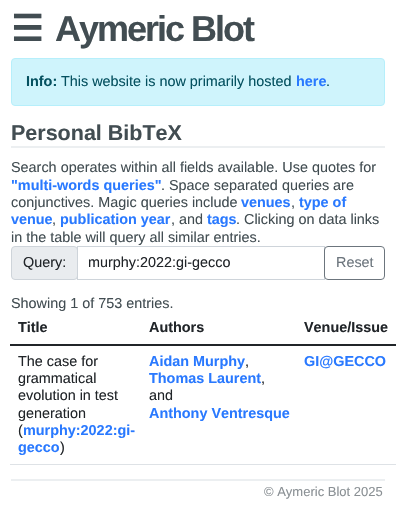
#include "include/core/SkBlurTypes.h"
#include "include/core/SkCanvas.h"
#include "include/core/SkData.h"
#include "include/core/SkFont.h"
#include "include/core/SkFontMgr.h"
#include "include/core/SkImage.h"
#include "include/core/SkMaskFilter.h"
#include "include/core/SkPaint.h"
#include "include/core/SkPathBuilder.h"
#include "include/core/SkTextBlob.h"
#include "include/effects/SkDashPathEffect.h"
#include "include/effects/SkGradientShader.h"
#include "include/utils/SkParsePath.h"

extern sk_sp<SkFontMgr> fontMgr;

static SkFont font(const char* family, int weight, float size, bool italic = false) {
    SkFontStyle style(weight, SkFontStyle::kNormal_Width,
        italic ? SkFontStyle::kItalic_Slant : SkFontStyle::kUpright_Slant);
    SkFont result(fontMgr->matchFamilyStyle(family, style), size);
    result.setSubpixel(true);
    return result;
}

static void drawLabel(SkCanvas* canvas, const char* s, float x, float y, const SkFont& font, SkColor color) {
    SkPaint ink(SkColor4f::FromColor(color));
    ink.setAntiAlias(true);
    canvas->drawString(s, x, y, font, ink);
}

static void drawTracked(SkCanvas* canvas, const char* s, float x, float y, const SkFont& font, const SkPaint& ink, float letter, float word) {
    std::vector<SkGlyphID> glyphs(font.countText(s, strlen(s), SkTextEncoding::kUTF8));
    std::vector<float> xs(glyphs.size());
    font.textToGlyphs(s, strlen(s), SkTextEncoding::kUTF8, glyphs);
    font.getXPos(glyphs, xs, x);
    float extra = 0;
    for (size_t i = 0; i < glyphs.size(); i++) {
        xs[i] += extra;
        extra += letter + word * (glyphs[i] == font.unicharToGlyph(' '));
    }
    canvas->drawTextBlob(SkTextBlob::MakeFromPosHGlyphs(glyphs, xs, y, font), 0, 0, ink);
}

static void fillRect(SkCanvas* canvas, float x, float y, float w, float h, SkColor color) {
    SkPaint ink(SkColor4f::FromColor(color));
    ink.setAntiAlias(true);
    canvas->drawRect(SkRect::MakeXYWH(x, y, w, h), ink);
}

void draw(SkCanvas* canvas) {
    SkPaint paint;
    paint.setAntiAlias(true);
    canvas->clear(0xFFFFFFFF);
    SkFont font1 = font("DejaVu Sans", 700, 36);
    paint.setColor(0xFF424D52);
    drawTracked(canvas, "☰", 11, 41, font1, paint, -2, 0);
    SkFont font2 = font("Liberation Sans", 700, 36);
    drawTracked(canvas, "Aymeric Blot", 55, 41, font2, paint, -2, 0);
    paint.setColor(0xFFCFF4FC);
    canvas->drawRoundRect(SkRect::MakeXYWH(11.5f, 58.5f, 373, 47), 3.5f, 3.5f, paint);
    paint.setStroke(true);
    paint.setStrokeWidth(1);
    paint.setColor(0xFFB6EFFB);
    canvas->drawRoundRect(SkRect::MakeXYWH(11.5f, 58.5f, 373, 47), 3.5f, 3.5f, paint);
    SkFont font3 = font("Liberation Sans", 700, 14.4f);
    drawLabel(canvas, "Info:", 26, 86, font3, 0xFF055160);
    SkFont font4 = font("Liberation Sans", 400, 14.4f);
    drawLabel(canvas, "This website is now primarily hosted", 61, 86, font4, 0xFF055160);
    drawLabel(canvas, "here", 296, 86, font3, 0xFF2979FF);
    drawLabel(canvas, ".", 326, 86, font4, 0xFF055160);
    fillRect(canvas, 11, 146, 374, 2, 0xFFECEFF1);
    SkFont font5 = font("Liberation Sans", 700, 21.5f);
    drawLabel(canvas, "Personal BibTeX", 11, 140, font5, 0xFF424D52);
    drawLabel(canvas, "Search operates within all fields available. Use quotes for", 11, 172, font4, 0xFF424D52);
    drawLabel(canvas, "\"multi-words queries\"", 11, 190, font3, 0xFF2979FF);
    drawLabel(canvas, ". Space separated queries are", 161, 190, font4, 0xFF424D52);
    drawLabel(canvas, "conjunctives. Magic queries include", 11, 207, font4, 0xFF424D52);
    drawLabel(canvas, "venues", 241, 207, font3, 0xFF2979FF);
    drawLabel(canvas, ",", 291, 207, font4, 0xFF424D52);
    drawLabel(canvas, "type of", 299, 207, font3, 0xFF2979FF);
    drawLabel(canvas, "venue", 11, 224, font3, 0xFF2979FF);
    drawLabel(canvas, ",", 52, 224, font4, 0xFF424D52);
    drawLabel(canvas, "publication year", 60, 224, font3, 0xFF2979FF);
    drawLabel(canvas, ", and", 171, 224, font4, 0xFF424D52);
    drawLabel(canvas, "tags", 207, 224, font3, 0xFF2979FF);
    drawLabel(canvas, ". Clicking on data links", 236, 224, font4, 0xFF424D52);
    drawLabel(canvas, "in the table will query all similar entries.", 11, 242, font4, 0xFF424D52);
    paint.setStroke(false);
    paint.setColor(0xFFE9ECEF);
    canvas->drawRoundRect(SkRect::MakeXYWH(11.5f, 246.5f, 66, 33), 3.5f, 3.5f, paint);
    paint.setStroke(true);
    paint.setColor(0xFFCED4DA);
    canvas->drawRoundRect(SkRect::MakeXYWH(11.5f, 246.5f, 66, 33), 3.5f, 3.5f, paint);
    drawLabel(canvas, "Query:", 23, 267, font4, 0xFF212529);
    canvas->drawRect(SkRect::MakeXYWH(77.5f, 246.5f, 247, 33), paint);
    drawLabel(canvas, "murphy:2022:gi-gecco", 88, 267, font4, 0xFF212529);
    paint.setColor(0xFF6C757D);
    canvas->drawRoundRect(SkRect::MakeXYWH(324.5f, 246.5f, 60, 33), 3.5f, 3.5f, paint);
    drawLabel(canvas, "Reset", 336, 267, font4, 0xFF6C757D);
    drawLabel(canvas, "Showing 1 of 753 entries.", 11, 308, font4, 0xFF424D52);
    drawLabel(canvas, "Title", 18, 332, font3, 0xFF212529);
    drawLabel(canvas, "Authors", 149, 332, font3, 0xFF212529);
    drawLabel(canvas, "Venue/Issue", 304, 332, font3, 0xFF212529);
    fillRect(canvas, 10, 344, 386, 2, 0xFF212529);
    drawLabel(canvas, "The case for", 18, 366, font4, 0xFF212529);
    drawLabel(canvas, "grammatical", 18, 383, font4, 0xFF212529);
    drawLabel(canvas, "evolution in test", 18, 400, font4, 0xFF212529);
    drawLabel(canvas, "generation", 18, 418, font4, 0xFF212529);
    drawLabel(canvas, "(", 18, 435, font4, 0xFF212529);
    drawLabel(canvas, "murphy:2022:gi-", 23, 435, font3, 0xFF2979FF);
    drawLabel(canvas, "gecco", 18, 452, font3, 0xFF2979FF);
    drawLabel(canvas, ")", 60, 452, font4, 0xFF212529);
    drawLabel(canvas, "Aidan Murphy", 149, 366, font3, 0xFF2979FF);
    drawLabel(canvas, ",", 245, 366, font4, 0xFF212529);
    drawLabel(canvas, "Thomas Laurent", 149, 383, font3, 0xFF2979FF);
    drawLabel(canvas, ",", 261, 383, font4, 0xFF212529);
    drawLabel(canvas, "and", 149, 400, font4, 0xFF212529);
    drawLabel(canvas, "Anthony Ventresque", 149, 418, font3, 0xFF2979FF);
    fillRect(canvas, 10, 464, 386, 1, 0xFFDEE2E6);
    drawLabel(canvas, "GI@GECCO", 304, 366, font3, 0xFF2979FF);
    fillRect(canvas, 11, 479, 374, 2, 0xFFECEFF1);
    SkFont font6 = font("Liberation Sans", 400, 13);
    drawLabel(canvas, "© Aymeric Blot 2025", 264, 496, font6, 0xFF8A9094);
}
